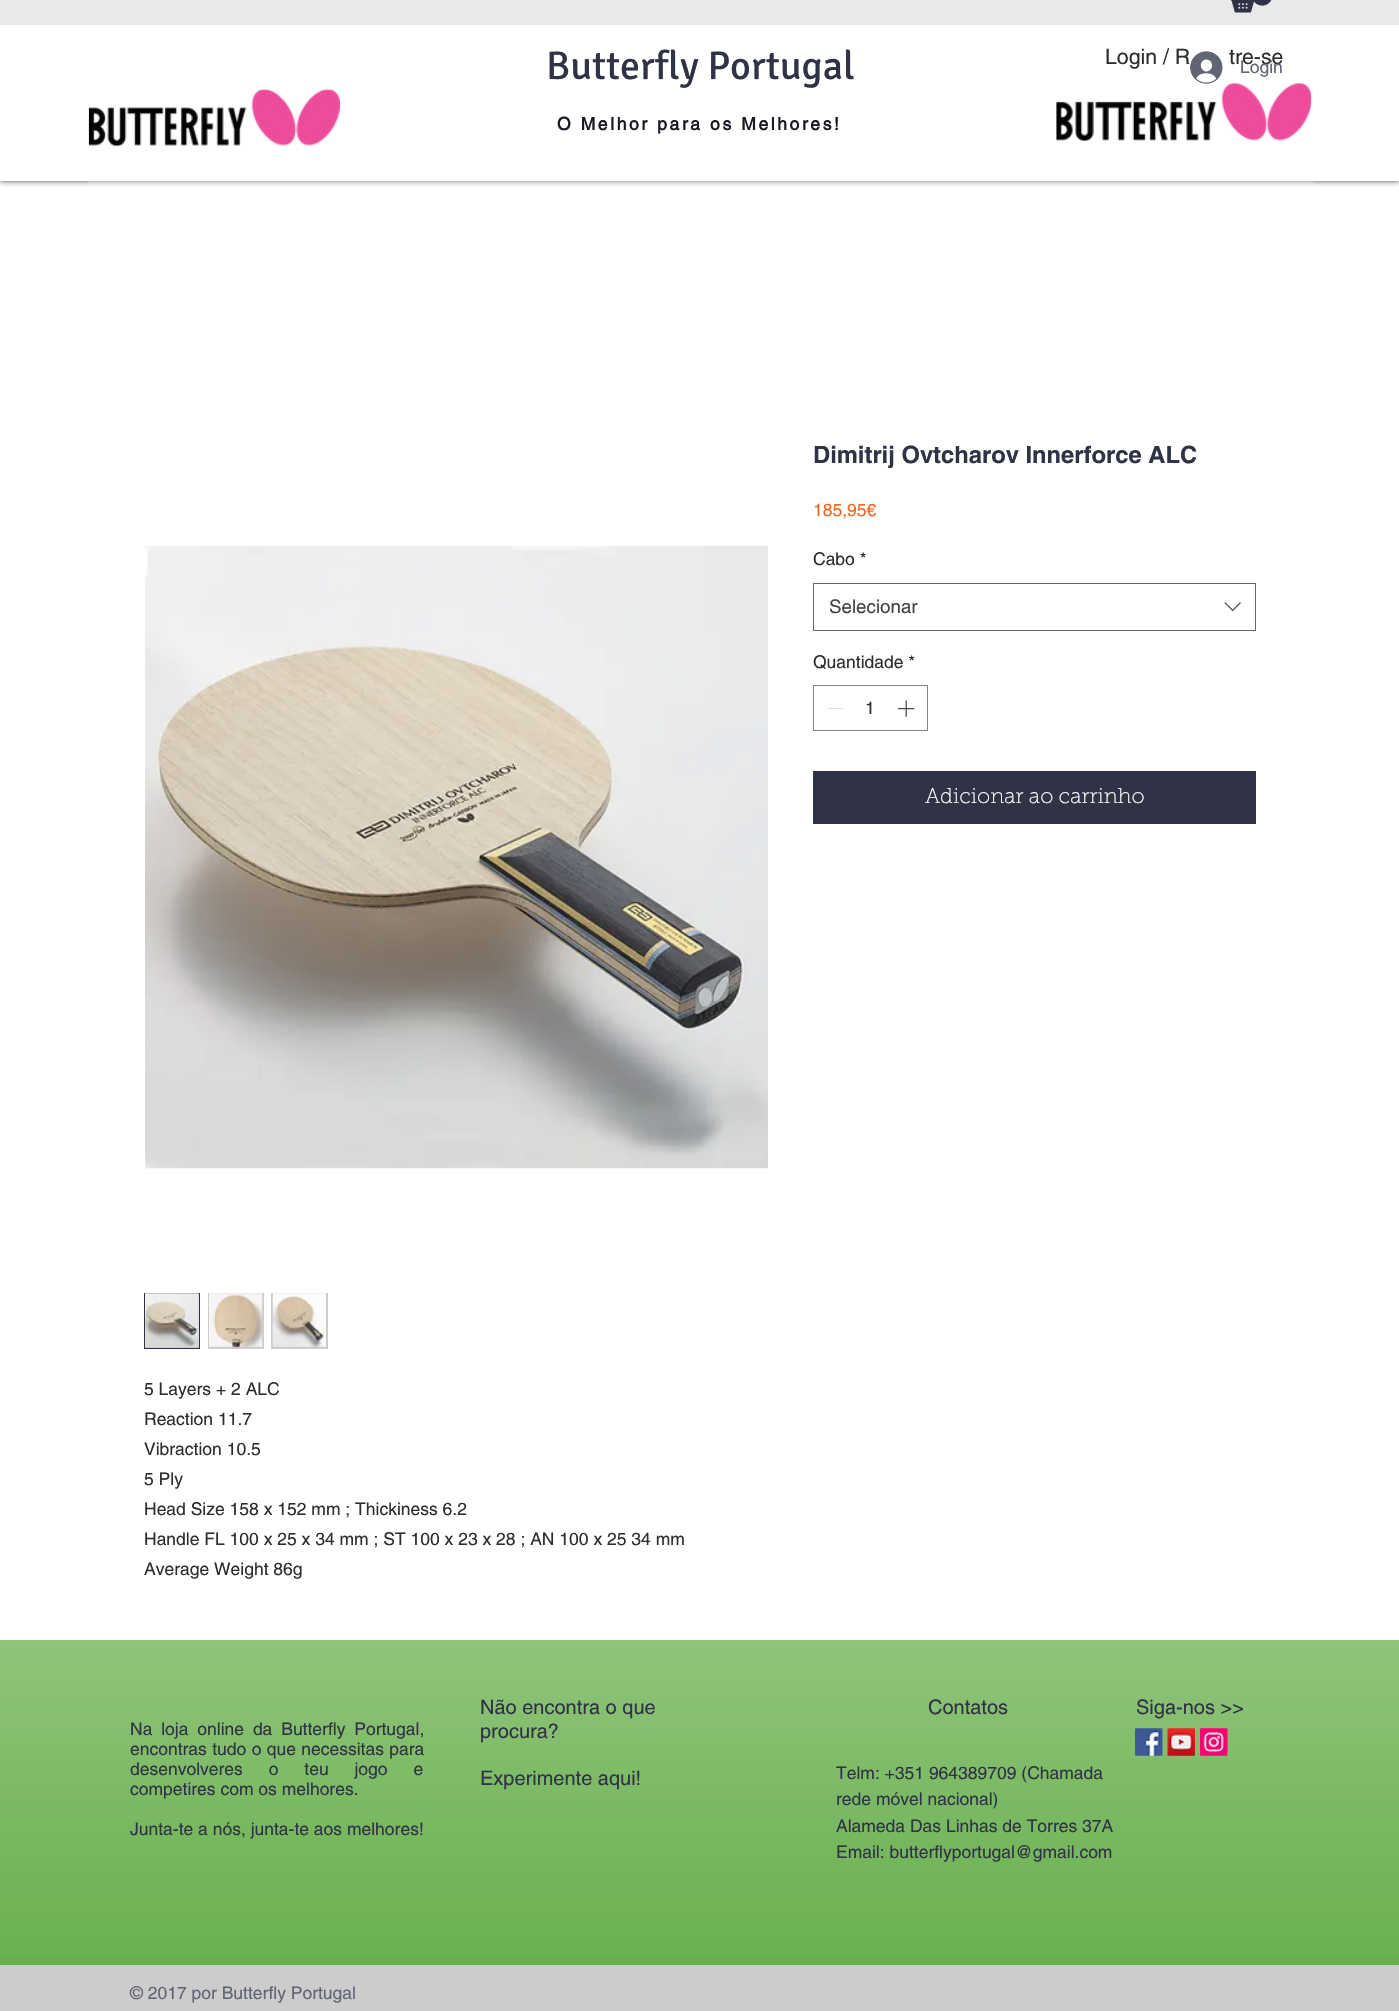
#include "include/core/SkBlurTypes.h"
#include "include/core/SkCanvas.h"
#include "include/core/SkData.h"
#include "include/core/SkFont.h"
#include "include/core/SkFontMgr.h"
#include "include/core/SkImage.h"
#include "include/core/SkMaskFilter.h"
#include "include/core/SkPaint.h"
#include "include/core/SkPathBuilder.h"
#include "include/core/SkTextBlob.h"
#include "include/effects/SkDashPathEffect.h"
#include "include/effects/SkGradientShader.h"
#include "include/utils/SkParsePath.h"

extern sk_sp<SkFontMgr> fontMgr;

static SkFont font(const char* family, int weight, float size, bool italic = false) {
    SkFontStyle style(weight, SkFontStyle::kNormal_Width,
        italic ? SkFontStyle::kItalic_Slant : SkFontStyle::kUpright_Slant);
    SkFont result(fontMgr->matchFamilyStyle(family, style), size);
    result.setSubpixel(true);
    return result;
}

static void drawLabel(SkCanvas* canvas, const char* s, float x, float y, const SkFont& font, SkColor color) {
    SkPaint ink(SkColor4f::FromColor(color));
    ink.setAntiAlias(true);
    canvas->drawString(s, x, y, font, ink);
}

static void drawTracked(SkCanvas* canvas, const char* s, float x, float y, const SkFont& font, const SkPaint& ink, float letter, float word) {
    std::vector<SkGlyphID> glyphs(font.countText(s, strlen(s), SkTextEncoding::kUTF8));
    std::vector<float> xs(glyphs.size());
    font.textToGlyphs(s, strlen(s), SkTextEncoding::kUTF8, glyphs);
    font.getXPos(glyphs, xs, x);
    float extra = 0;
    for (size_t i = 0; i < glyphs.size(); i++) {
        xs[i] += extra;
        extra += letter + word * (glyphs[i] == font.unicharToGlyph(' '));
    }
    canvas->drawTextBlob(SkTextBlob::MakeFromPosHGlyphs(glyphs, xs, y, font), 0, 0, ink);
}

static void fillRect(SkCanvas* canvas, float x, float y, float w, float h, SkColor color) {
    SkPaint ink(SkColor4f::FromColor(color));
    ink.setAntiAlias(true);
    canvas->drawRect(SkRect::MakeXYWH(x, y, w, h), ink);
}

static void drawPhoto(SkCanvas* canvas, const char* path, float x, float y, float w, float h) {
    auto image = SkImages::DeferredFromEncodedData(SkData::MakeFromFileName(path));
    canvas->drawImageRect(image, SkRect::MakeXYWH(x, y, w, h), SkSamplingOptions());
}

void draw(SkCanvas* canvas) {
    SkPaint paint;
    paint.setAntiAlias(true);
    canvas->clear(0xFFFFFFFF);
    canvas->save();
    canvas->clipRect(SkRect::MakeXYWH(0, 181, 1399, 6));
    paint.setColor(0xB3000000);
    paint.setMaskFilter(SkMaskFilter::MakeBlur(kNormal_SkBlurStyle, 3));
    canvas->drawRect(SkRect::MakeXYWH(0, -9, 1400, 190), paint);
    paint.setMaskFilter(nullptr);
    canvas->restore();
    fillRect(canvas, 0, 0, 1399, 25, 0xFFE9E9E9);
    drawPhoto(canvas, "assets/img1.png", 1231, 0, 41, 13);
    SkFont font1 = font("Signika", 400, 40);
    drawLabel(canvas, "Butterfly Portugal", 546, 79, font1, 0xFF2F3345);
    SkFont font2 = font("helvetica", 400, 21.25f);
    drawLabel(canvas, "Login / R", 1105, 64, font2, 0xFF2F2E2E);
    drawLabel(canvas, "tre-se", 1229, 64, font2, 0xFF2F2E2E);
    drawPhoto(canvas, "assets/img4.png", 1056, 83, 256, 58);
    drawPhoto(canvas, "assets/img2.png", 1190, 51, 33, 33);
    SkFont font3 = font("helvetica", 400, 17.5f);
    drawLabel(canvas, "Login", 1240, 73, font3, 0xFF616473);
    drawPhoto(canvas, "assets/img3.png", 88, 89, 252, 57);
    SkFont font4 = font("helvetica", 700, 17.5f);
    paint.setColor(0xFF181923);
    drawTracked(canvas, "O Melhor para os Melhores!", 557, 130, font4, paint, 2.6f, 0);
    fillRect(canvas, 88, 181, 1225, 4, 0x33FFFFFF);
    SkFont font5 = font("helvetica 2", 700, 23.75f);
    drawLabel(canvas, "Dimitrij Ovtcharov Innerforce ALC", 813, 463, font5, 0xFF2F3345);
    drawLabel(canvas, "185,95€", 813, 516, font3, 0xFFF56618);
    drawLabel(canvas, "Cabo *", 813, 565, font3, 0xFF2F2E2E);
    paint.setStroke(true);
    paint.setStrokeWidth(1);
    paint.setColor(0xFF666666);
    canvas->drawRect(SkRect::MakeXYWH(813.5f, 583.5f, 442, 47), paint);
    SkFont font6 = font("helvetica", 400, 18.75f);
    drawLabel(canvas, "Selecionar", 829, 613, font6, 0xFF444444);
    drawPhoto(canvas, "assets/img5.png", 1224, 602, 17, 10);
    drawLabel(canvas, "Quantidade *", 813, 668, font3, 0xFF2F2E2E);
    paint.setColor(0xFF828282);
    canvas->drawRect(SkRect::MakeXYWH(813.5f, 685.5f, 114, 45), paint);
    fillRect(canvas, 827, 708, 16, 1, 0xFFE3E3E3);
    drawLabel(canvas, "1", 865, 714, font3, 0xFF2F2E2E);
    drawPhoto(canvas, "assets/img6.png", 897, 700, 18, 17);
    fillRect(canvas, 813, 771, 443, 53, 0xFF2F3345);
    SkFont font7 = font("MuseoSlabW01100", 100, 21.25f);
    drawLabel(canvas, "Adicionar ao carrinho", 925, 803, font7, 0xFFFFFFFF);
    drawPhoto(canvas, "assets/img7.png", 145, 545, 623, 624);
    paint.setStroke(false);
    paint.setColor(0xFFCCCCCC);
    canvas->drawRect(SkRect::MakeXYWH(144.5f, 1293.5f, 55, 55), paint);
    paint.setStroke(true);
    paint.setColor(0xFF2F3345);
    canvas->drawRect(SkRect::MakeXYWH(144.5f, 1293.5f, 55, 55), paint);
    drawPhoto(canvas, "assets/img8.png", 145, 1293, 54, 54);
    fillRect(canvas, 208, 1293, 56, 56, 0xFFCCCCCC);
    drawPhoto(canvas, "assets/img9.png", 209, 1293, 54, 55);
    fillRect(canvas, 271, 1293, 57, 56, 0xFFCCCCCC);
    drawPhoto(canvas, "assets/img10.png", 272, 1293, 54, 55);
    drawLabel(canvas, "5 Layers + 2 ALC", 144, 1395, font3, 0xFF2F2E2E);
    drawLabel(canvas, "Reaction 11.7", 144, 1425, font3, 0xFF2F2E2E);
    drawLabel(canvas, "Vibraction 10.5", 144, 1455, font3, 0xFF2F2E2E);
    drawLabel(canvas, "5 Ply", 144, 1485, font3, 0xFF2F2E2E);
    drawLabel(canvas, "Head Size 158 x 152 mm ; Thickiness 6.2", 144, 1515, font3, 0xFF2F2E2E);
    drawLabel(canvas, "Handle FL 100 x 25 x 34 mm ; ST 100 x 23 x 28 ; AN 100 x 25 34 mm", 144, 1545, font3, 0xFF2F2E2E);
    drawLabel(canvas, "Average Weight 86g", 144, 1575, font3, 0xFF2F2E2E);
    fillRect(canvas, 0, 1640, 1399, 325, 0xFF68B04D);
    drawPhoto(canvas, "assets/img11.png", 0, 1640, 1399, 316);
    SkFont font8 = font("helvetica", 400, 20);
    drawLabel(canvas, "Não encontra o que", 480, 1714, font8, 0xFF2F3345);
    drawLabel(canvas, "procura?", 480, 1738, font8, 0xFF2F3345);
    drawLabel(canvas, "Experimente aqui!", 480, 1785, font8, 0xFF2F3345);
    drawLabel(canvas, "Contatos", 928, 1714, font8, 0xFF2F3345);
    drawLabel(canvas, "Siga-nos >>", 1136, 1714, font8, 0xFF2F3345);
    paint.setStroke(false);
    drawTracked(canvas, "Na loja online da Butterfly Portugal,", 130, 1735, font3, paint, 0, 4);
    drawTracked(canvas, "encontras tudo o que necessitas para", 130, 1755, font3, paint, 0, 0.5f);
    drawTracked(canvas, "desenvolveres o teu jogo e", 130, 1775, font3, paint, 0, 21);
    drawLabel(canvas, "competires com os melhores.", 130, 1795, font3, 0xFF2F3345);
    drawLabel(canvas, "Junta-te a nós, junta-te aos melhores!", 130, 1835, font3, 0xFF2F3345);
    drawPhoto(canvas, "assets/img12.png", 1135, 1728, 28, 28);
    drawPhoto(canvas, "assets/img13.png", 1167, 1728, 28, 28);
    drawPhoto(canvas, "assets/img14.png", 1200, 1728, 28, 28);
    drawLabel(canvas, "Telm: +351 964389709 (Chamada", 836, 1779, font3, 0xFF2F3345);
    drawLabel(canvas, "rede móvel nacional)", 836, 1805, font3, 0xFF2F3345);
    drawLabel(canvas, "Alameda Das Linhas de Torres 37A", 836, 1832, font3, 0xFF2F3345);
    drawLabel(canvas, "Email: butterflyportugal@gmail.com", 836, 1858, font3, 0xFF2F3345);
    fillRect(canvas, 0, 1965, 1399, 46, 0xFFCCCCCC);
    drawLabel(canvas, "© 2017 por Butterfly Portugal", 130, 1999, font3, 0xFF616473);
}
